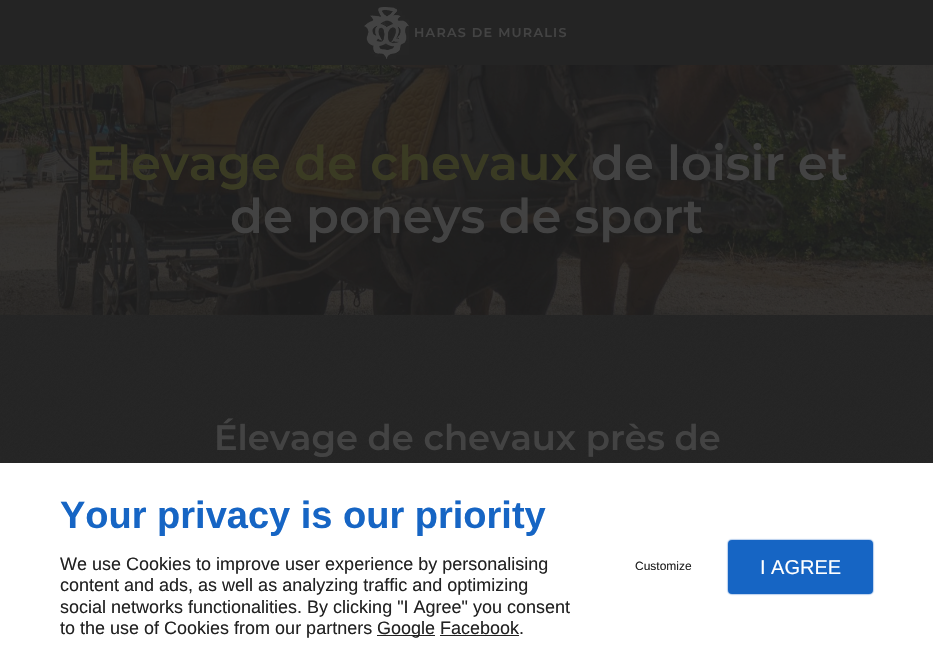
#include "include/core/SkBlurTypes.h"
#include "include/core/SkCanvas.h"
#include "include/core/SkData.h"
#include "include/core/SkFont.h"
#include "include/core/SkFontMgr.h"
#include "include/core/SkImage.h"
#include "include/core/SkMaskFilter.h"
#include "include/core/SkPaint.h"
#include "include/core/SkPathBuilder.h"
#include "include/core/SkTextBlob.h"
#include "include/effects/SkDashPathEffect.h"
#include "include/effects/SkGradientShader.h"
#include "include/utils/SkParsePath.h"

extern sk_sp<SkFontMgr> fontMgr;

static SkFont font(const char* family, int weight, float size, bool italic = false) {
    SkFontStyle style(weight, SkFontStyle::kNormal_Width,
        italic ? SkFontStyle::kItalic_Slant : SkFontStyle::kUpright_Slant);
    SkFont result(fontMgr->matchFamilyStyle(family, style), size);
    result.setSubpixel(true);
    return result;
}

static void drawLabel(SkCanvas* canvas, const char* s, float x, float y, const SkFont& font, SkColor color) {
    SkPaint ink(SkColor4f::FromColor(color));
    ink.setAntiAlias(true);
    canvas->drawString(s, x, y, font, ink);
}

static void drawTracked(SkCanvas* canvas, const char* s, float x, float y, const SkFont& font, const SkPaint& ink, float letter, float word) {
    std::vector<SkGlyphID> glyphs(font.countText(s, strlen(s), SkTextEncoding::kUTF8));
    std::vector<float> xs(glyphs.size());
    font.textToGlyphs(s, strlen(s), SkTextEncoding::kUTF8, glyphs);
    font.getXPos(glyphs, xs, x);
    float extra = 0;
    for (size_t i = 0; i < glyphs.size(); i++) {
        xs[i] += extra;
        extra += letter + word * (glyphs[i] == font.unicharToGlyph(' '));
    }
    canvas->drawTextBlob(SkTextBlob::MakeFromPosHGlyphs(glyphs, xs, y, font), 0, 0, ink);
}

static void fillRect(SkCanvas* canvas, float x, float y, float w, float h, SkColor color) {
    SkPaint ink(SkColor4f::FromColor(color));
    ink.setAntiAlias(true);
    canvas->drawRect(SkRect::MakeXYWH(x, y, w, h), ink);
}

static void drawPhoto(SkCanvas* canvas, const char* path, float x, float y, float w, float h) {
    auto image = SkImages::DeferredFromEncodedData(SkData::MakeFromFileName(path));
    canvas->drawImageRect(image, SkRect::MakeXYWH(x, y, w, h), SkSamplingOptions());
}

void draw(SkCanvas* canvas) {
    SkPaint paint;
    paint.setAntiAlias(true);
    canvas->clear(0xFF1D1D1D);
    drawPhoto(canvas, "assets/img1.png", 0, 314, 933, 149);
    fillRect(canvas, 0, 0, 933, 65, 0xFF242424);
    drawPhoto(canvas, "assets/img2.png", 364, 7, 45, 52);
    SkFont font1 = font("Montserrat", 600, 12.75f);
    paint.setColor(0xFF434343);
    drawTracked(canvas, "HARAS DE MURALIS", 414, 37, font1, paint, 1.25f, 0);
    drawPhoto(canvas, "assets/img3.png", 0, 314, 933, 1);
    drawPhoto(canvas, "assets/img4.png", 0, 65, 933, 250);
    fillRect(canvas, 0, 65, 933, 250, 0x591D1D1D);
    SkFont font2 = font("Montserrat", 600, 48);
    drawLabel(canvas, "Elevage de chevaux", 85, 180, font2, 0xFF3A3B23);
    drawLabel(canvas, "de loisir et", 591, 180, font2, 0xFF434343);
    drawLabel(canvas, "de poneys de sport", 230, 233, font2, 0xFF434343);
    SkFont font3 = font("Montserrat", 600, 35.25f);
    drawLabel(canvas, "Élevage de chevaux près de", 214, 450, font3, 0xFF434343);
    fillRect(canvas, 0, 463, 933, 207, 0xFFFFFFFF);
    SkFont font4 = font("Liberation Sans", 700, 38);
    drawLabel(canvas, "Your privacy is our priority", 60, 528, font4, 0xFF1665C4);
    SkFont font5 = font("Liberation Sans", 400, 18);
    drawLabel(canvas, "We use Cookies to improve user experience by personalising", 60, 570, font5, 0xFF222222);
    drawLabel(canvas, "content and ads, as well as analyzing traffic and optimizing", 60, 591, font5, 0xFF222222);
    drawLabel(canvas, "social networks functionalities. By clicking \"I Agree\" you consent", 60, 613, font5, 0xFF222222);
    drawLabel(canvas, "to the use of Cookies from our partners", 60, 634, font5, 0xFF222222);
    fillRect(canvas, 377, 635, 58, 1, 0xFF222222);
    drawLabel(canvas, "Google Facebook.", 377, 634, font5, 0xFF222222);
    fillRect(canvas, 440, 635, 79, 1, 0xFF222222);
    SkFont font6 = font("Liberation Sans", 400, 12);
    drawLabel(canvas, "Customize", 635, 570, font6, 0xFF222222);
    paint.setColor(0x4D1665C4);
    paint.setMaskFilter(SkMaskFilter::MakeBlur(kNormal_SkBlurStyle, 0.5f));
    canvas->drawRoundRect(SkRect::MakeXYWH(727, 539, 147, 56), 5, 5, paint);
    paint.setMaskFilter(nullptr);
    paint.setColor(0xFF1665C4);
    canvas->drawRoundRect(SkRect::MakeXYWH(729, 541, 143, 52), 3, 3, paint);
    paint.setStroke(true);
    paint.setStrokeWidth(2);
    canvas->drawRoundRect(SkRect::MakeXYWH(729, 541, 143, 52), 3, 3, paint);
    SkFont font7 = font("Liberation Sans", 400, 20);
    drawLabel(canvas, "I AGREE", 760, 574, font7, 0xFFFFFFFF);
}
